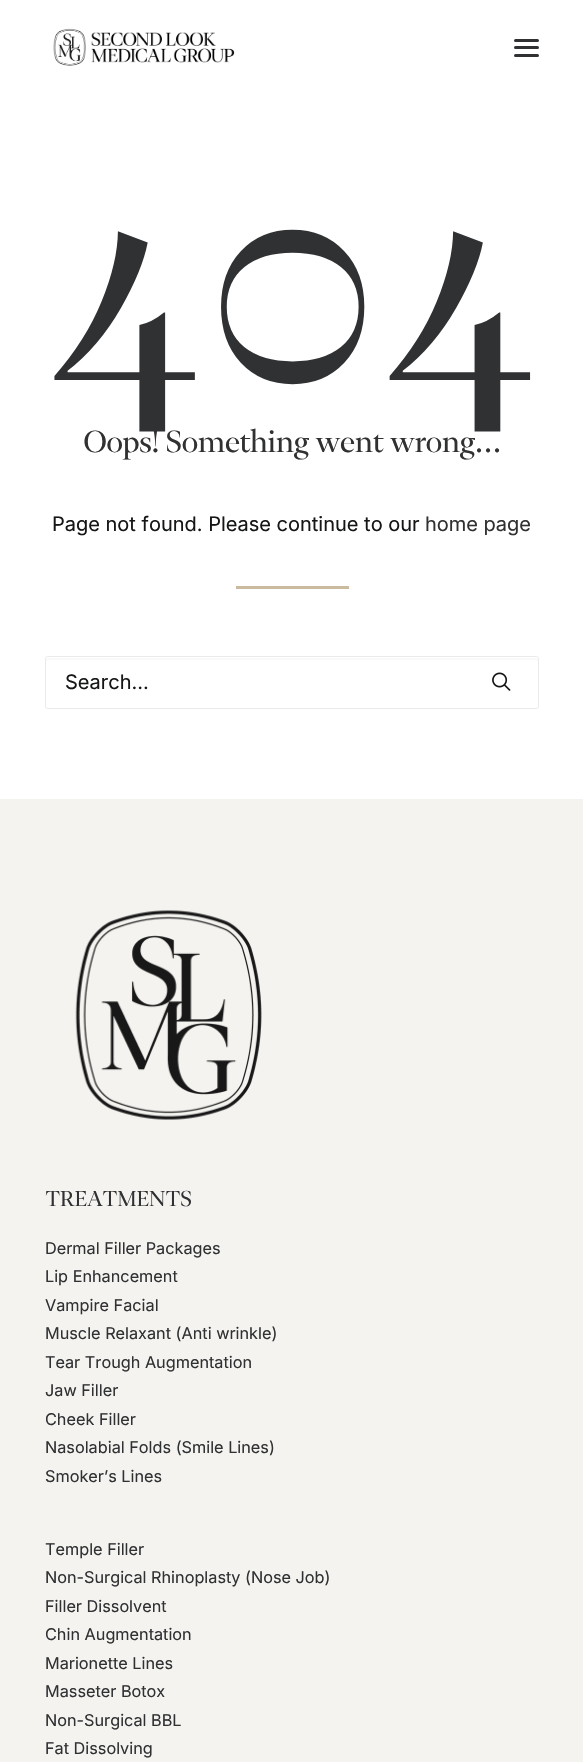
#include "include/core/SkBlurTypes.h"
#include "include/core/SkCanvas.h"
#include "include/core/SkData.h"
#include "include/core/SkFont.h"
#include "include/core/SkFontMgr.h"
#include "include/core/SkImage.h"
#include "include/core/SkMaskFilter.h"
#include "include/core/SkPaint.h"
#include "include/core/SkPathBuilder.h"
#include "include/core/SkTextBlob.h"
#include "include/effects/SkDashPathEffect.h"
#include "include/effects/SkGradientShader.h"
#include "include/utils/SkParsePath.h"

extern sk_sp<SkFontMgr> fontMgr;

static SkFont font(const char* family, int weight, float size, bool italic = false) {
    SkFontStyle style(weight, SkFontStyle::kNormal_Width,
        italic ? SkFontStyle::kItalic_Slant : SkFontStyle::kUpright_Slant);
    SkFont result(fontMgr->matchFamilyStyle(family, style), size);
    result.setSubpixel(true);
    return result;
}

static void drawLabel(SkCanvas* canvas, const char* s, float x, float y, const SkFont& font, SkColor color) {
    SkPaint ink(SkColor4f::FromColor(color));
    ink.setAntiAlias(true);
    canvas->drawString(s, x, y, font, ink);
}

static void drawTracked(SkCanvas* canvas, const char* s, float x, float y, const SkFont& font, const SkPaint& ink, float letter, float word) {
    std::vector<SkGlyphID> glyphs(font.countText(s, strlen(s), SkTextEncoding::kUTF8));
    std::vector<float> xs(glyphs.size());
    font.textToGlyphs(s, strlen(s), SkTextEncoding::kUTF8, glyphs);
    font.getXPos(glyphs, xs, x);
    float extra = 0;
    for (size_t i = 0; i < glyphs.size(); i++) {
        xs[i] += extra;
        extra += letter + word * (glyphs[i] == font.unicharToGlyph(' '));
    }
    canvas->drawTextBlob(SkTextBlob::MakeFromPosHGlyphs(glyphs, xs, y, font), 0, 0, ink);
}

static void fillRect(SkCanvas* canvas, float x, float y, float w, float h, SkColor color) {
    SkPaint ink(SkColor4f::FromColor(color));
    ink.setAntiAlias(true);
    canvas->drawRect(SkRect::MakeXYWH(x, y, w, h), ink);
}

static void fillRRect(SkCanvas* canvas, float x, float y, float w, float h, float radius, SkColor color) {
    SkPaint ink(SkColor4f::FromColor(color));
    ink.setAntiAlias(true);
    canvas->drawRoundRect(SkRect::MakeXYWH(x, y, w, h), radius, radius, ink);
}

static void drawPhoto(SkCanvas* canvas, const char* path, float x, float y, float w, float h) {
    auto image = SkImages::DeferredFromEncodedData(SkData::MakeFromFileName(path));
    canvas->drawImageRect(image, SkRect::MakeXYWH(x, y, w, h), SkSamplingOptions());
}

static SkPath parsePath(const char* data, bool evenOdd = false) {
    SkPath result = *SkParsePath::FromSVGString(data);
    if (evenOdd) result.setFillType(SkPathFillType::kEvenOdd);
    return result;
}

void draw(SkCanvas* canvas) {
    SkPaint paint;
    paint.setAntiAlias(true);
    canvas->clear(0xFFFFFFFF);
    drawPhoto(canvas, "assets/img1.png", 53, 28, 182, 38);
    fillRRect(canvas, 514, 46, 25, 3, 1.5f, 0xFF303133);
    fillRRect(canvas, 514, 39, 25, 3, 1.5f, 0xFF303133);
    fillRRect(canvas, 514, 54, 25, 3, 1.5f, 0xFF303133);
    SkFont font1 = font("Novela", 400, 286);
    paint.setColor(0xFF303133);
    drawTracked(canvas, "404", 45, 380, font1, paint, -1, 0);
    SkFont font2 = font("Novela", 400, 30);
    drawTracked(canvas, "Oops! Something went wrong…", 83, 452, font2, paint, -0.9f, 0);
    SkFont font3 = font("Inter", 400, 20);
    drawLabel(canvas, "Page not found. Please continue to our", 52, 531, font3, 0xFF141618);
    drawLabel(canvas, "home page", 425, 531, font3, 0xFF303133);
    fillRect(canvas, 236, 586, 113, 3, 0xFFCABB9F);
    paint.setColor(0xFFF9F9F9);
    canvas->drawPath(parsePath("M48 660H536L538 661V659C538 658 538 658 537 658H47C46 658 46 658 46 659V661Z"), paint);
    paint.setStroke(true);
    paint.setStrokeWidth(1);
    paint.setColor(0xFFEAEAEA);
    canvas->drawRoundRect(SkRect::MakeXYWH(45.5f, 656.5f, 493, 52), 2, 2, paint);
    drawLabel(canvas, "Search…", 65, 689, font3, 0xFF141618);
    drawPhoto(canvas, "assets/img2.png", 492, 672, 19, 19);
    fillRect(canvas, 0, 799, 583, 963, 0xFFF4F3F0);
    drawPhoto(canvas, "assets/img3.png", 75, 910, 187, 210);
    SkFont font4 = font("Novela", 400, 21.25f);
    paint.setStroke(false);
    paint.setColor(0xFF303133);
    drawTracked(canvas, "TREATMENTS", 45, 1206, font4, paint, -0.6f, 0);
    SkFont font5 = font("Inter", 400, 16.25f);
    drawLabel(canvas, "Dermal Filler Packages", 45, 1254, font5, 0xFF303133);
    drawLabel(canvas, "Lip Enhancement", 45, 1282, font5, 0xFF303133);
    drawLabel(canvas, "Vampire Facial", 45, 1311, font5, 0xFF303133);
    drawLabel(canvas, "Muscle Relaxant (Anti wrinkle)", 45, 1339, font5, 0xFF303133);
    drawLabel(canvas, "Tear Trough Augmentation", 45, 1368, font5, 0xFF303133);
    drawLabel(canvas, "Jaw Filler", 45, 1396, font5, 0xFF303133);
    drawLabel(canvas, "Cheek Filler", 45, 1425, font5, 0xFF303133);
    drawLabel(canvas, "Nasolabial Folds (Smile Lines)", 45, 1453, font5, 0xFF303133);
    drawLabel(canvas, "Smoker’s Lines", 45, 1482, font5, 0xFF303133);
    drawLabel(canvas, "Temple Filler", 45, 1555, font5, 0xFF303133);
    drawLabel(canvas, "Non-Surgical Rhinoplasty (Nose Job)", 45, 1583, font5, 0xFF303133);
    drawLabel(canvas, "Filler Dissolvent", 45, 1612, font5, 0xFF303133);
    drawLabel(canvas, "Chin Augmentation", 45, 1640, font5, 0xFF303133);
    drawLabel(canvas, "Marionette Lines", 45, 1669, font5, 0xFF303133);
    drawLabel(canvas, "Masseter Botox", 45, 1697, font5, 0xFF303133);
    drawLabel(canvas, "Non-Surgical BBL", 45, 1726, font5, 0xFF303133);
    drawLabel(canvas, "Fat Dissolving", 45, 1754, font5, 0xFF303133);
}
